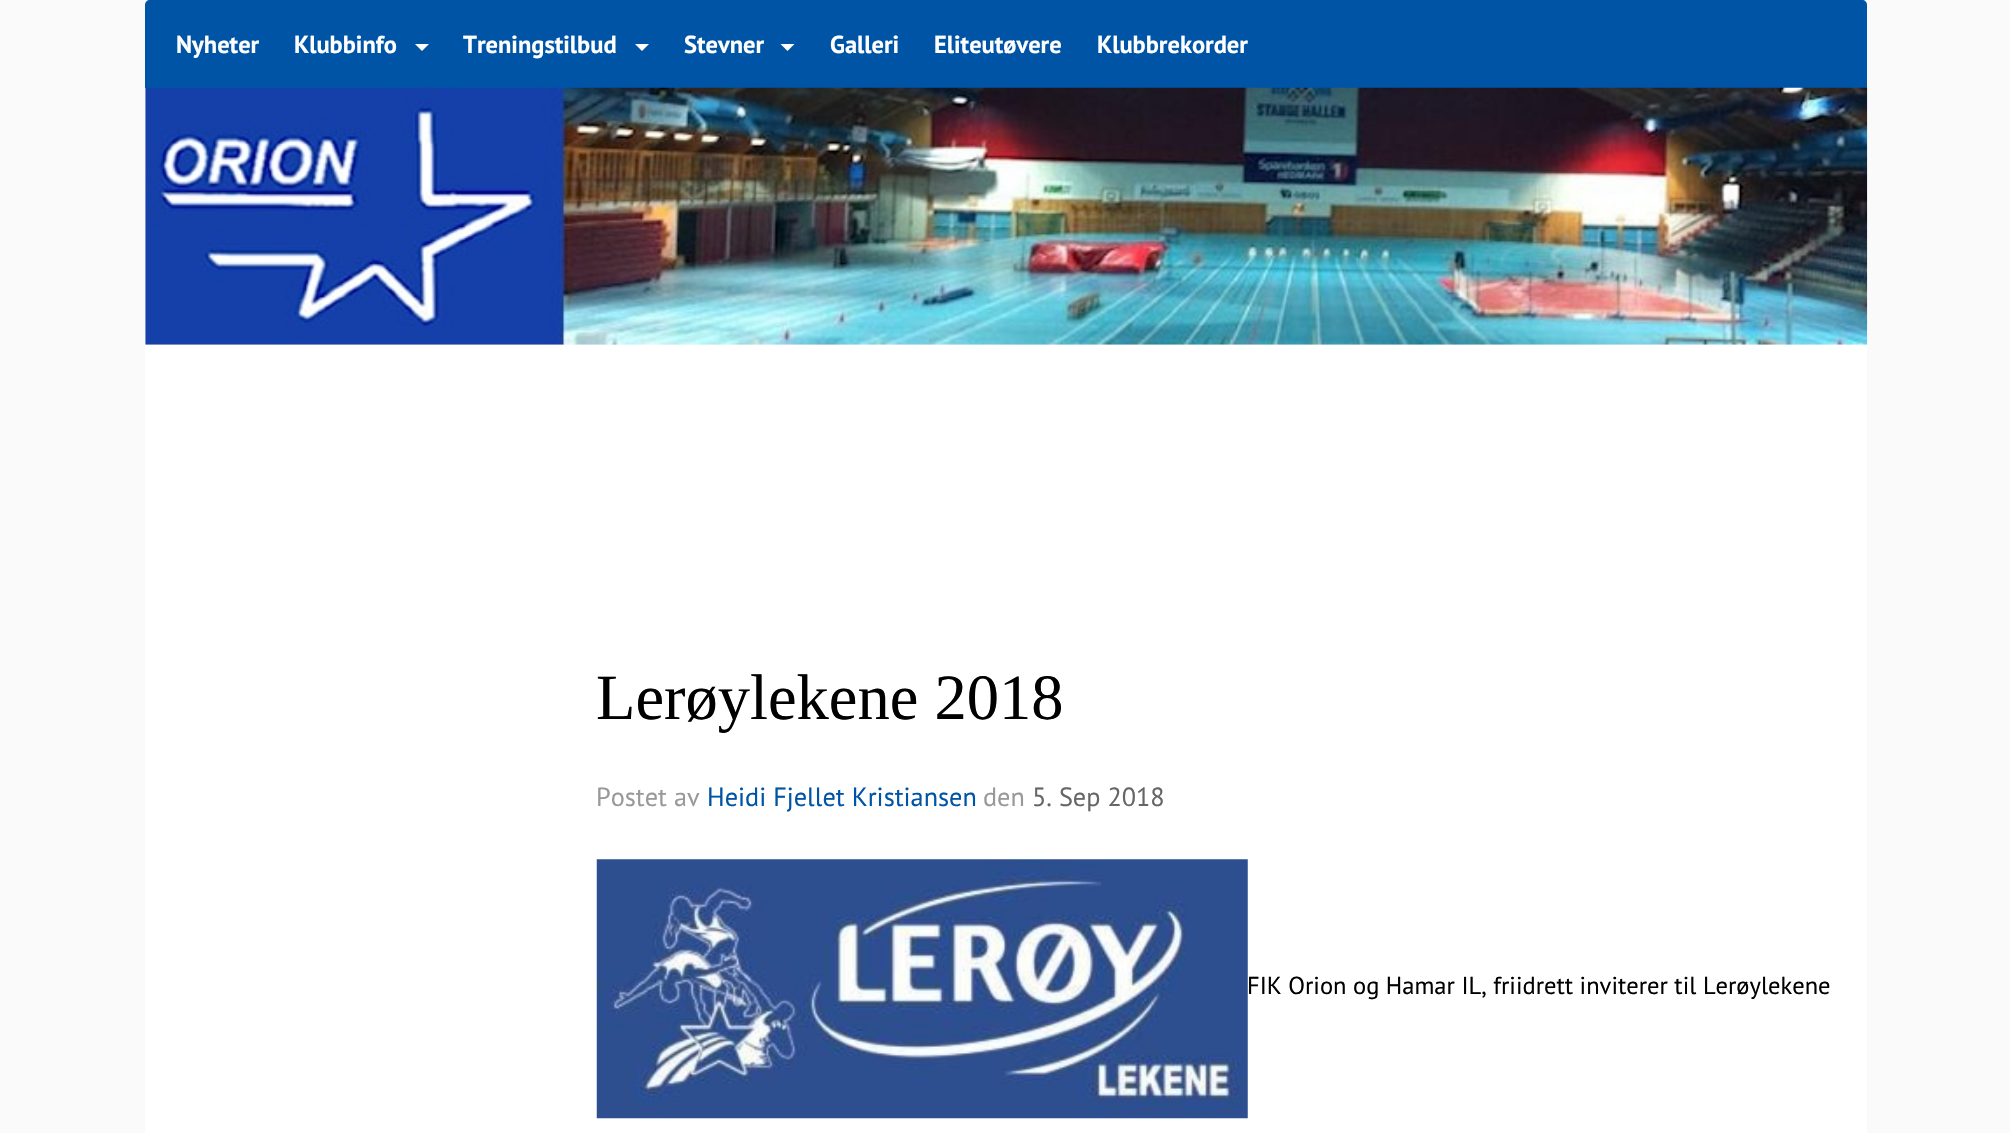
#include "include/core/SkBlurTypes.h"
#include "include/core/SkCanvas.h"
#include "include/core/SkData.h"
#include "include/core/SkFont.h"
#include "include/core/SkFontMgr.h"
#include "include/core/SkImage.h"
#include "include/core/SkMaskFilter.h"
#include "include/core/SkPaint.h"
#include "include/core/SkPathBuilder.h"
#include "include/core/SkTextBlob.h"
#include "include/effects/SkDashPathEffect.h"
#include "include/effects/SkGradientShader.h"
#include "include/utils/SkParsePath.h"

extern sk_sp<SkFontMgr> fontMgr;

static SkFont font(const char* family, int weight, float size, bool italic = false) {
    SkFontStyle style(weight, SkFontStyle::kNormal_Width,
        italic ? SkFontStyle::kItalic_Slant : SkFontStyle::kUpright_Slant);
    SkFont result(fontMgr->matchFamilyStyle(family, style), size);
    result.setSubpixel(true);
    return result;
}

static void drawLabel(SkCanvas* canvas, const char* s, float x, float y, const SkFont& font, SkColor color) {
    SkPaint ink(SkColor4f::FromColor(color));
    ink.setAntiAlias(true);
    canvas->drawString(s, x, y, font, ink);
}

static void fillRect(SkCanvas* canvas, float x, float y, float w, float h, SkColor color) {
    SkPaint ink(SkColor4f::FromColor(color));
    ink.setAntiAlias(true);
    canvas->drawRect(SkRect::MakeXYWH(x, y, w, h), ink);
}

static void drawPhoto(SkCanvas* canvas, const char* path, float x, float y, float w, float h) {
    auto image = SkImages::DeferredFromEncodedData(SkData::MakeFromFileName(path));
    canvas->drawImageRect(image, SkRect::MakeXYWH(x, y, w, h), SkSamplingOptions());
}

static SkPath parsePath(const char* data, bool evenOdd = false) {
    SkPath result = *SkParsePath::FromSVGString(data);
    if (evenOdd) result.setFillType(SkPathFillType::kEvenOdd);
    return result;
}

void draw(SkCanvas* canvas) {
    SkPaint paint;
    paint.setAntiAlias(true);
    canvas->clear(0xFFFAFAFA);
    paint.setColor(0xFF0054A6);
    canvas->drawPath(parsePath("M150 0H1862C1865 0 1867 2 1867 5V88H145V5C145 2 147 0 150 0Z"), paint);
    SkFont font1 = font("PT Sans", 700, 24.5f);
    drawLabel(canvas, "Nyheter", 176, 53, font1, 0xFFFFFFFF);
    drawLabel(canvas, "Klubbinfo", 294, 53, font1, 0xFFFFFFFF);
    paint.setColor(0xFFFFFFFF);
    canvas->drawPath(parsePath("M415 44H429L422 51Z"), paint);
    drawLabel(canvas, "Treningstilbud", 463, 53, font1, 0xFFFFFFFF);
    canvas->drawPath(parsePath("M635 44H649L642 51Z"), paint);
    drawLabel(canvas, "Stevner", 684, 53, font1, 0xFFFFFFFF);
    canvas->drawPath(parsePath("M780.5 44H794.5L787.5 51Z"), paint);
    drawLabel(canvas, "Galleri", 830, 53, font1, 0xFFFFFFFF);
    drawLabel(canvas, "Eliteutøvere", 934, 53, font1, 0xFFFFFFFF);
    drawLabel(canvas, "Klubbrekorder", 1097, 53, font1, 0xFFFFFFFF);
    drawPhoto(canvas, "assets/img1.png", 145, 87, 1723, 258);
    fillRect(canvas, 145, 345, 1722, 788, 0xFFFFFFFF);
    SkFont font2 = font("Liberation Serif", 400, 64.5f);
    drawLabel(canvas, "Lerøylekene 2018", 596, 719, font2, 0xFF000000);
    SkFont font3 = font("PT Sans", 400, 26.25f);
    drawLabel(canvas, "Postet av", 596, 806, font3, 0xFF999999);
    drawLabel(canvas, "Heidi Fjellet Kristiansen", 707, 806, font3, 0xFF0054A6);
    drawLabel(canvas, "den", 983, 806, font3, 0xFF999999);
    drawLabel(canvas, "5. Sep 2018", 1032, 806, font3, 0xFF666666);
    drawPhoto(canvas, "assets/img2.png", 596, 859, 652, 260);
    SkFont font4 = font("PT Sans", 400, 24.5f);
    drawLabel(canvas, "FIK Orion og Hamar IL, friidrett inviterer til Lerøylekene", 1247, 994, font4, 0xFF000000);
}
